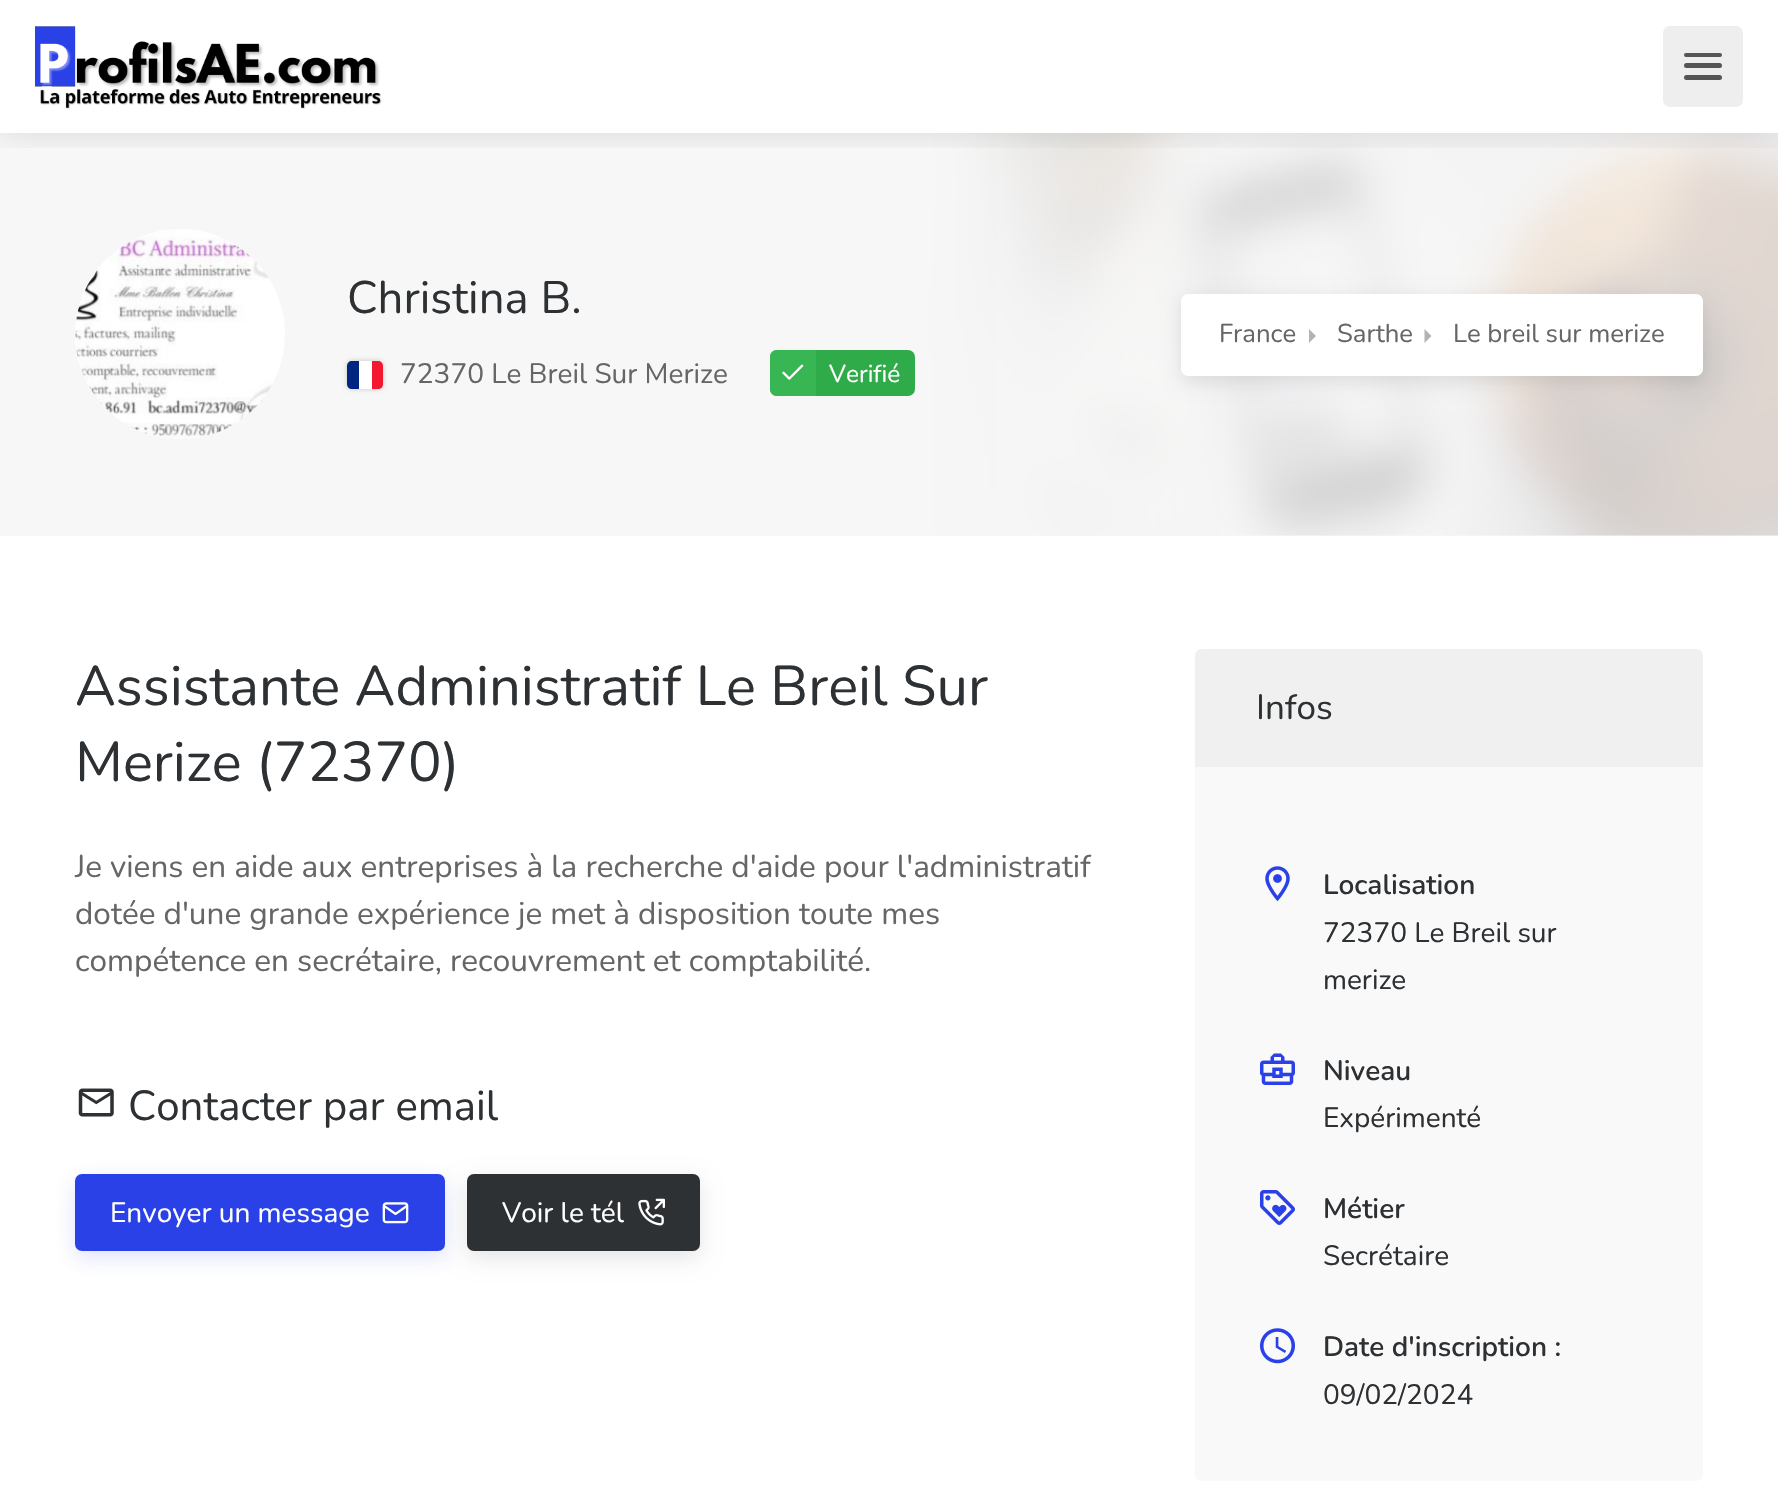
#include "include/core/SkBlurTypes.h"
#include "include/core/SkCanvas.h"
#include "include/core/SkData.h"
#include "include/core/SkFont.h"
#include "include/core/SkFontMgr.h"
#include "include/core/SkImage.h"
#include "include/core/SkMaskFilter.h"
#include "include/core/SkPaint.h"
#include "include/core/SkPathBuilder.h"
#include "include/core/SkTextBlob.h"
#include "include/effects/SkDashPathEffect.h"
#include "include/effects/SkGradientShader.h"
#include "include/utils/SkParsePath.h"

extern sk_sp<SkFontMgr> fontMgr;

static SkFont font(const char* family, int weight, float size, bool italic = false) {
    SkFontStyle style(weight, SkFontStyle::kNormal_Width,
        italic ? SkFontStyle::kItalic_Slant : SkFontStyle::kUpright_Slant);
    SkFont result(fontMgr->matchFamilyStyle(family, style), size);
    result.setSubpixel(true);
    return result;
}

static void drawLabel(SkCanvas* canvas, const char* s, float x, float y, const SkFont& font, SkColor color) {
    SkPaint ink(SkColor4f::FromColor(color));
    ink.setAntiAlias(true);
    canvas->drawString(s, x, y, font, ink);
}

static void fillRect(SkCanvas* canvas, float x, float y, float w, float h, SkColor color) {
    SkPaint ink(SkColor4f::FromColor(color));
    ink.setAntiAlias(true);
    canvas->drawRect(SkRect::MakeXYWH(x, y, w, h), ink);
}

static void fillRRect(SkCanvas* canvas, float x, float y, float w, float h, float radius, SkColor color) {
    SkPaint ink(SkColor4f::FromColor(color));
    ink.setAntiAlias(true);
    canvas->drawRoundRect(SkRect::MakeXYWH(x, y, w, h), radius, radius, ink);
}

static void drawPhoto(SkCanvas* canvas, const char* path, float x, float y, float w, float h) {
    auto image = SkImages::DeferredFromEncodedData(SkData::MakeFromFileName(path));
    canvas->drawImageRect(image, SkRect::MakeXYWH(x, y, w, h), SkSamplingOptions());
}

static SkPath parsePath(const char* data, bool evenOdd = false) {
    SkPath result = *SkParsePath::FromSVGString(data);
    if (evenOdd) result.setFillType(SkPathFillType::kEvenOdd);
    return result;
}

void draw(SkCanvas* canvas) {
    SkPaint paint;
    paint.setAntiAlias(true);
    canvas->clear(0xFFFFFFFF);
    fillRect(canvas, 899, 535, 879, 1, 0xFFF7F7F7);
    drawPhoto(canvas, "assets/img2.png", 899, 133, 879, 403);
    {
        const SkColor colors[] = {0xFFF7F7F7, 0xCCF7F7F7, 0xCCF7F7F7};
        const float stops[] = {0.5f, 0.7f, 0.9f};
        const SkPoint ends[] = {{0, 334}, {1778, 334}};
        paint.setShader(SkGradientShader::MakeLinear(ends, colors, stops, 3, SkTileMode::kClamp));
        paint.setAlpha(255);
    }
    canvas->drawRect(SkRect::MakeXYWH(0, 133, 1778, 403), paint);
    canvas->save();
    canvas->clipRect(SkRect::MakeXYWH(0, 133, 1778, 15));
    paint.setShader(nullptr);
    paint.setColor(0x1F000000);
    paint.setMaskFilter(SkMaskFilter::MakeBlur(kNormal_SkBlurStyle, 16));
    canvas->drawRect(SkRect::MakeXYWH(0, 0, 1778, 133), paint);
    paint.setMaskFilter(nullptr);
    canvas->restore();
    drawPhoto(canvas, "assets/img1.png", 35, 26, 347, 83);
    fillRRect(canvas, 1663, 26, 80, 81, 7, 0xFFEEEEEE);
    fillRRect(canvas, 1684, 75, 38, 5, 2.5f, 0xFF555555);
    fillRRect(canvas, 1684, 53, 38, 4, 2, 0xFF555555);
    fillRRect(canvas, 1684, 63, 38, 5, 2.5f, 0xFF555555);
    paint.setColor(0xFFFFFFFF);
    canvas->drawCircle(180, 334, 105, paint);
    drawPhoto(canvas, "assets/img3.png", 75, 230, 197, 209);
    SkFont font1 = font("Nunito", 400, 45.5f);
    drawLabel(canvas, "Christina B.", 347, 313, font1, 0xFF2D3134);
    paint.setColor(0x33000000);
    paint.setMaskFilter(SkMaskFilter::MakeBlur(kNormal_SkBlurStyle, 2.5f));
    canvas->drawRoundRect(SkRect::MakeXYWH(347, 361, 36, 28), 5, 5, paint);
    paint.setMaskFilter(nullptr);
    fillRRect(canvas, 347, 361, 36, 28, 5, 0xFFFFFFFF);
    paint.setColor(0xFF00267F);
    canvas->drawPath(parsePath("M352 361H359V389H352C349 389 347 387 347 384V366C347 363 349 361 352 361Z"), paint);
    paint.setColor(0xFFF31830);
    canvas->drawPath(parsePath("M372 361H378C381 361 383 363 383 366V384C383 387 381 389 378 389H372Z"), paint);
    SkFont font2 = font("Nunito", 400, 28);
    drawLabel(canvas, "72370 Le Breil Sur Merize", 400, 383, font2, 0xFF666666);
    fillRRect(canvas, 770, 350, 145, 46, 7, 0xFF30AB4A);
    paint.setColor(0xFF38B653);
    canvas->drawPath(parsePath("M777 350H816V396H777C773 396 770 393 770 389V357C770 353 773 350 777 350Z"), paint);
    drawPhoto(canvas, "assets/img4.png", 782, 364, 22, 16);
    SkFont font3 = font("Nunito", 400, 24.5f);
    drawLabel(canvas, "Verifié", 829, 382, font3, 0xFFFFFFFF);
    paint.setColor(0x1A000000);
    paint.setMaskFilter(SkMaskFilter::MakeBlur(kNormal_SkBlurStyle, 9));
    canvas->drawRoundRect(SkRect::MakeXYWH(1181, 299, 522, 83), 7, 7, paint);
    paint.setMaskFilter(nullptr);
    fillRRect(canvas, 1181, 294, 522, 82, 7, 0xFFFFFFFF);
    SkFont font4 = font("Nunito", 400, 25.75f);
    drawLabel(canvas, "France", 1219, 342, font4, 0xFF666666);
    paint.setColor(0xFFB3B3B3);
    canvas->drawPath(parsePath("M1309 343V329L1316 336Z"), paint);
    drawLabel(canvas, "Sarthe", 1337, 342, font4, 0xFF666666);
    canvas->drawPath(parsePath("M1424.5 343V329L1431.5 336Z"), paint);
    drawLabel(canvas, "Le breil sur merize", 1453, 342, font4, 0xFF666666);
    SkFont font5 = font("Nunito", 400, 56);
    drawLabel(canvas, "Assistante Administratif Le Breil Sur", 75, 705, font5, 0xFF2D3134);
    drawLabel(canvas, "Merize (72370)", 75, 781, font5, 0xFF2D3134);
    SkFont font6 = font("Nunito", 400, 31.5f);
    drawLabel(canvas, "Je viens en aide aux entreprises à la recherche d'aide pour l'administratif", 75, 877, font6, 0xFF666666);
    drawLabel(canvas, "dotée d'une grande expérience je met à disposition toute mes", 75, 924, font6, 0xFF666666);
    drawLabel(canvas, "compétence en secrétaire, recouvrement et comptabilité.", 75, 971, font6, 0xFF666666);
    drawPhoto(canvas, "assets/img5.png", 78, 1088, 36, 29);
    SkFont font7 = font("Nunito", 400, 42);
    drawLabel(canvas, "Contacter par email", 128, 1120, font7, 0xFF2D3134);
    paint.setColor(0x262A41E8);
    paint.setMaskFilter(SkMaskFilter::MakeBlur(kNormal_SkBlurStyle, 10.5f));
    canvas->drawRoundRect(SkRect::MakeXYWH(75, 1181, 370, 77), 7, 7, paint);
    paint.setMaskFilter(nullptr);
    fillRRect(canvas, 75, 1174, 370, 77, 7, 0xFF2A41E8);
    drawLabel(canvas, "Envoyer un message", 110, 1222, font2, 0xFFFFFFFF);
    drawPhoto(canvas, "assets/img6.png", 382, 1202, 27, 22);
    paint.setColor(0x1A000000);
    paint.setMaskFilter(SkMaskFilter::MakeBlur(kNormal_SkBlurStyle, 10.5f));
    canvas->drawRoundRect(SkRect::MakeXYWH(467, 1181, 233, 77), 7, 7, paint);
    paint.setMaskFilter(nullptr);
    fillRRect(canvas, 467, 1174, 233, 77, 7, 0xFF2D3134);
    drawLabel(canvas, "Voir le tél", 502, 1222, font2, 0xFFFFFFFF);
    drawPhoto(canvas, "assets/img7.png", 638, 1198, 27, 28);
    fillRRect(canvas, 1195, 649, 508, 832, 7, 0xFFF9F9F9);
    paint.setColor(0xFFF0F0F0);
    canvas->drawPath(parsePath("M1202 649H1696C1700 649 1703 652 1703 656V767H1195V656C1195 652 1198 649 1202 649Z"), paint);
    SkFont font8 = font("Nunito", 400, 35);
    drawLabel(canvas, "Infos", 1256, 719, font8, 0xFF2D3134);
    drawPhoto(canvas, "assets/img8.png", 1265, 866, 25, 36);
    SkFont font9 = font("Nunito", 600, 28);
    drawLabel(canvas, "Localisation", 1323, 894, font9, 0xFF2D3134);
    drawLabel(canvas, "72370 Le Breil sur", 1323, 942, font2, 0xFF2D3134);
    drawLabel(canvas, "merize", 1323, 989, font2, 0xFF2D3134);
    drawPhoto(canvas, "assets/img9.png", 1260, 1053, 35, 32);
    drawLabel(canvas, "Niveau", 1323, 1080, font9, 0xFF2D3134);
    drawLabel(canvas, "Expérimenté", 1323, 1127, font2, 0xFF2D3134);
    drawPhoto(canvas, "assets/img10.png", 1260, 1190, 35, 35);
    drawLabel(canvas, "Métier", 1323, 1218, font9, 0xFF2D3134);
    drawLabel(canvas, "Secrétaire", 1323, 1265, font2, 0xFF2D3134);
    drawPhoto(canvas, "assets/img11.png", 1260, 1328, 35, 36);
    drawLabel(canvas, "Date d'inscription :", 1323, 1356, font9, 0xFF2D3134);
    drawLabel(canvas, "09/02/2024", 1323, 1404, font2, 0xFF2D3134);
}
